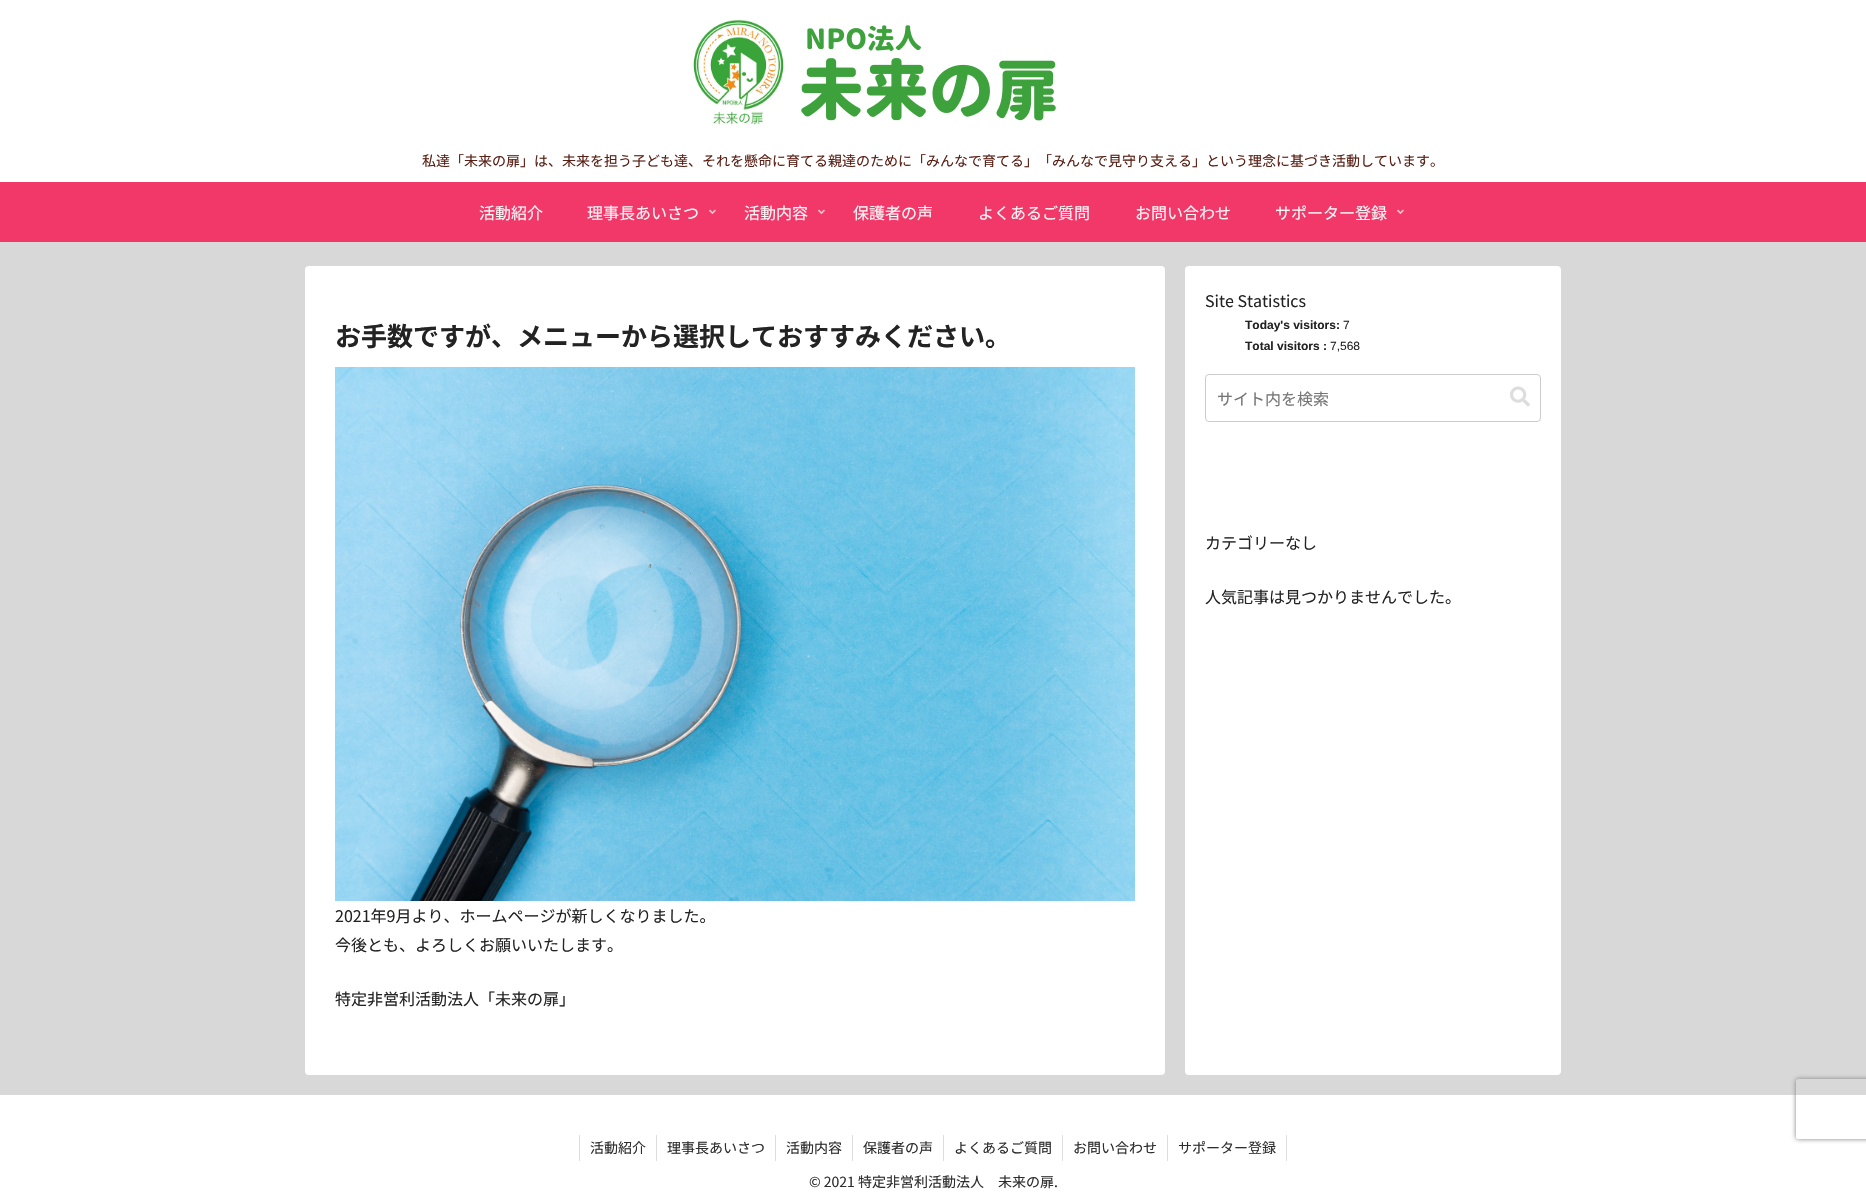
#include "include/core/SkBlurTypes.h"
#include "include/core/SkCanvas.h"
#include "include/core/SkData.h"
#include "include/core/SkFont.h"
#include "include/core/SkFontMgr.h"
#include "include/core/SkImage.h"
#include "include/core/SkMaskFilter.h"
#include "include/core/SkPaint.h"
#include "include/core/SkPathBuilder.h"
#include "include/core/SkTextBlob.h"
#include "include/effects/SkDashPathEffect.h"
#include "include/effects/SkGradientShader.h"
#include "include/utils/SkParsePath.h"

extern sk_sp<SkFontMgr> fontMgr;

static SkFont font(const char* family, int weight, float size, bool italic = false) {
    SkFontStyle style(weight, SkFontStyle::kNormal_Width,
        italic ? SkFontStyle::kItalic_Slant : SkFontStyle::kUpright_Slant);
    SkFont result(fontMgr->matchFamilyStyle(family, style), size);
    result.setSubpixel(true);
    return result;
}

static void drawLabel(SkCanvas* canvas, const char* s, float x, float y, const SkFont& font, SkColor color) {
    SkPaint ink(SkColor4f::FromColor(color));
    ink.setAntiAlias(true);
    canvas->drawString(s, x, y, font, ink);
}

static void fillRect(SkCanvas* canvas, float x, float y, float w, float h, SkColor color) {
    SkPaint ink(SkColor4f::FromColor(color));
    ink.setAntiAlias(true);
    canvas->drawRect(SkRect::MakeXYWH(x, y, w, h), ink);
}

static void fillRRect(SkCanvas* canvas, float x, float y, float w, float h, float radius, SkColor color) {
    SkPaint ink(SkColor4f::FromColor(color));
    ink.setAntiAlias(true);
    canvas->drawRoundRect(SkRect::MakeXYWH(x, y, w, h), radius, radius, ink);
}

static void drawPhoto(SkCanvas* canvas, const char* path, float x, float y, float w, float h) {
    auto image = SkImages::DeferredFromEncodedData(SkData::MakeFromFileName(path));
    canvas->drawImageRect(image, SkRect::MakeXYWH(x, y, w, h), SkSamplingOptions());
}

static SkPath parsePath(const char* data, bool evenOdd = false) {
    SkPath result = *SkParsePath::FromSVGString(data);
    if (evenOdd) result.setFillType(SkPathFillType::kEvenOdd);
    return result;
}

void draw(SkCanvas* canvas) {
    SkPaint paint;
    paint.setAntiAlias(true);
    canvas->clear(0xFFD8D8D8);
    fillRect(canvas, 0, 0, 1866, 182, 0xFFFFFFFF);
    drawPhoto(canvas, "assets/img1.png", 693, 19, 363, 106);
    SkFont font1 = font("Noto Sans JP", 400, 14);
    drawLabel(canvas, "私達「未来の扉」は、未来を担う子ども達、それを懸命に育てる親達のために「みんなで育てる」「みんなで見守り支える」という理念に基づき活動しています。", 422, 166, font1, 0xFF591F14);
    fillRect(canvas, 0, 182, 1866, 60, 0xFFF23769);
    SkFont font2 = font("Noto Sans JP", 400, 16);
    drawLabel(canvas, "活動紹介", 479, 219, font2, 0xFFF7F7F7);
    drawLabel(canvas, "理事長あいさつ", 587, 219, font2, 0xFFF7F7F7);
    drawPhoto(canvas, "assets/img2.png", 709, 209, 7, 5);
    drawLabel(canvas, "活動内容", 744, 219, font2, 0xFFF7F7F7);
    drawPhoto(canvas, "assets/img2.png", 818, 209, 7, 5);
    drawLabel(canvas, "保護者の声", 853, 219, font2, 0xFFF7F7F7);
    drawLabel(canvas, "よくあるご質問", 978, 219, font2, 0xFFF7F7F7);
    drawLabel(canvas, "お問い合わせ", 1135, 219, font2, 0xFFF7F7F7);
    drawLabel(canvas, "サポーター登録", 1275, 219, font2, 0xFFF7F7F7);
    drawPhoto(canvas, "assets/img2.png", 1397, 209, 7, 5);
    fillRRect(canvas, 305, 266, 860, 809, 4, 0xFFFFFFFF);
    SkFont font3 = font("Noto Sans JP", 700, 26);
    drawLabel(canvas, "お手数ですが、メニューから選択しておすすみください。", 335, 346, font3, 0xFF232323);
    drawPhoto(canvas, "assets/img3.png", 335, 367, 800, 534);
    drawLabel(canvas, "2021年9月より、ホームページが新しくなりました。", 335, 922, font2, 0xFF232323);
    drawLabel(canvas, "今後とも、よろしくお願いいたします。", 335, 951, font2, 0xFF232323);
    drawLabel(canvas, "特定非営利活動法人「未来の扉」", 335, 1005, font2, 0xFF232323);
    fillRRect(canvas, 1185, 266, 376, 809, 4, 0xFFFFFFFF);
    drawLabel(canvas, "Site Statistics", 1205, 307, font2, 0xFF232323);
    SkFont font4 = font("Liberation Sans", 700, 12);
    drawLabel(canvas, "Today's visitors:", 1245, 329, font4, 0xFF232323);
    SkFont font5 = font("Liberation Sans", 400, 12);
    drawLabel(canvas, "7", 1343, 329, font5, 0xFF232323);
    drawLabel(canvas, "Total visitors :", 1245, 350, font4, 0xFF232323);
    drawLabel(canvas, "7,568", 1330, 350, font5, 0xFF232323);
    paint.setStroke(true);
    paint.setStrokeWidth(1);
    paint.setColor(0xFFCCCCCC);
    canvas->drawRoundRect(SkRect::MakeXYWH(1205.5f, 374.5f, 335, 47), 3.5f, 3.5f, paint);
    drawLabel(canvas, "サイト内を検索", 1217, 405, font2, 0xFF757575);
    drawPhoto(canvas, "assets/img4.png", 1510, 386, 20, 21);
    drawLabel(canvas, "カテゴリーなし", 1205, 549, font2, 0xFF232323);
    drawLabel(canvas, "人気記事は見つかりませんでした。", 1205, 603, font2, 0xFF232323);
    fillRect(canvas, 0, 1095, 1866, 104, 0xFFFFFFFF);
    fillRect(canvas, 579, 1135, 1, 26, 0xFFDDDDDD);
    drawLabel(canvas, "活動紹介", 590, 1153, font1, 0xFF2D2D2D);
    fillRect(canvas, 656, 1135, 1, 26, 0xFFDDDDDD);
    drawLabel(canvas, "理事長あいさつ", 667, 1153, font1, 0xFF2D2D2D);
    fillRect(canvas, 775, 1135, 1, 26, 0xFFDDDDDD);
    drawLabel(canvas, "活動内容", 786, 1153, font1, 0xFF2D2D2D);
    fillRect(canvas, 852, 1135, 1, 26, 0xFFDDDDDD);
    drawLabel(canvas, "保護者の声", 863, 1153, font1, 0xFF2D2D2D);
    fillRect(canvas, 943, 1135, 1, 26, 0xFFDDDDDD);
    drawLabel(canvas, "よくあるご質問", 954, 1153, font1, 0xFF2D2D2D);
    fillRect(canvas, 1062, 1135, 1, 26, 0xFFDDDDDD);
    drawLabel(canvas, "お問い合わせ", 1073, 1153, font1, 0xFF2D2D2D);
    fillRect(canvas, 1286, 1135, 1, 26, 0xFFDDDDDD);
    fillRect(canvas, 1167, 1135, 1, 26, 0xFFDDDDDD);
    drawLabel(canvas, "サポーター登録", 1178, 1153, font1, 0xFF2D2D2D);
    drawLabel(canvas, "© 2021 特定非営利活動法人　未来の扉.", 809, 1187, font1, 0xFF2D2D2D);
    canvas->save();
    canvas->clipPath(parsePath("M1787 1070H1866V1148H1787ZM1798 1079H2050C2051 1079 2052 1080 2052 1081V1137C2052 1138 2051 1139 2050 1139H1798C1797 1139 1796 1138 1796 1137V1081C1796 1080 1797 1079 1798 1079Z", true), true);
    paint.setStroke(false);
    paint.setColor(0xFF808080);
    paint.setMaskFilter(SkMaskFilter::MakeBlur(kNormal_SkBlurStyle, 2.5f));
    canvas->drawRoundRect(SkRect::MakeXYWH(1796, 1079, 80, 60), 2, 2, paint);
    paint.setMaskFilter(nullptr);
    canvas->restore();
}
